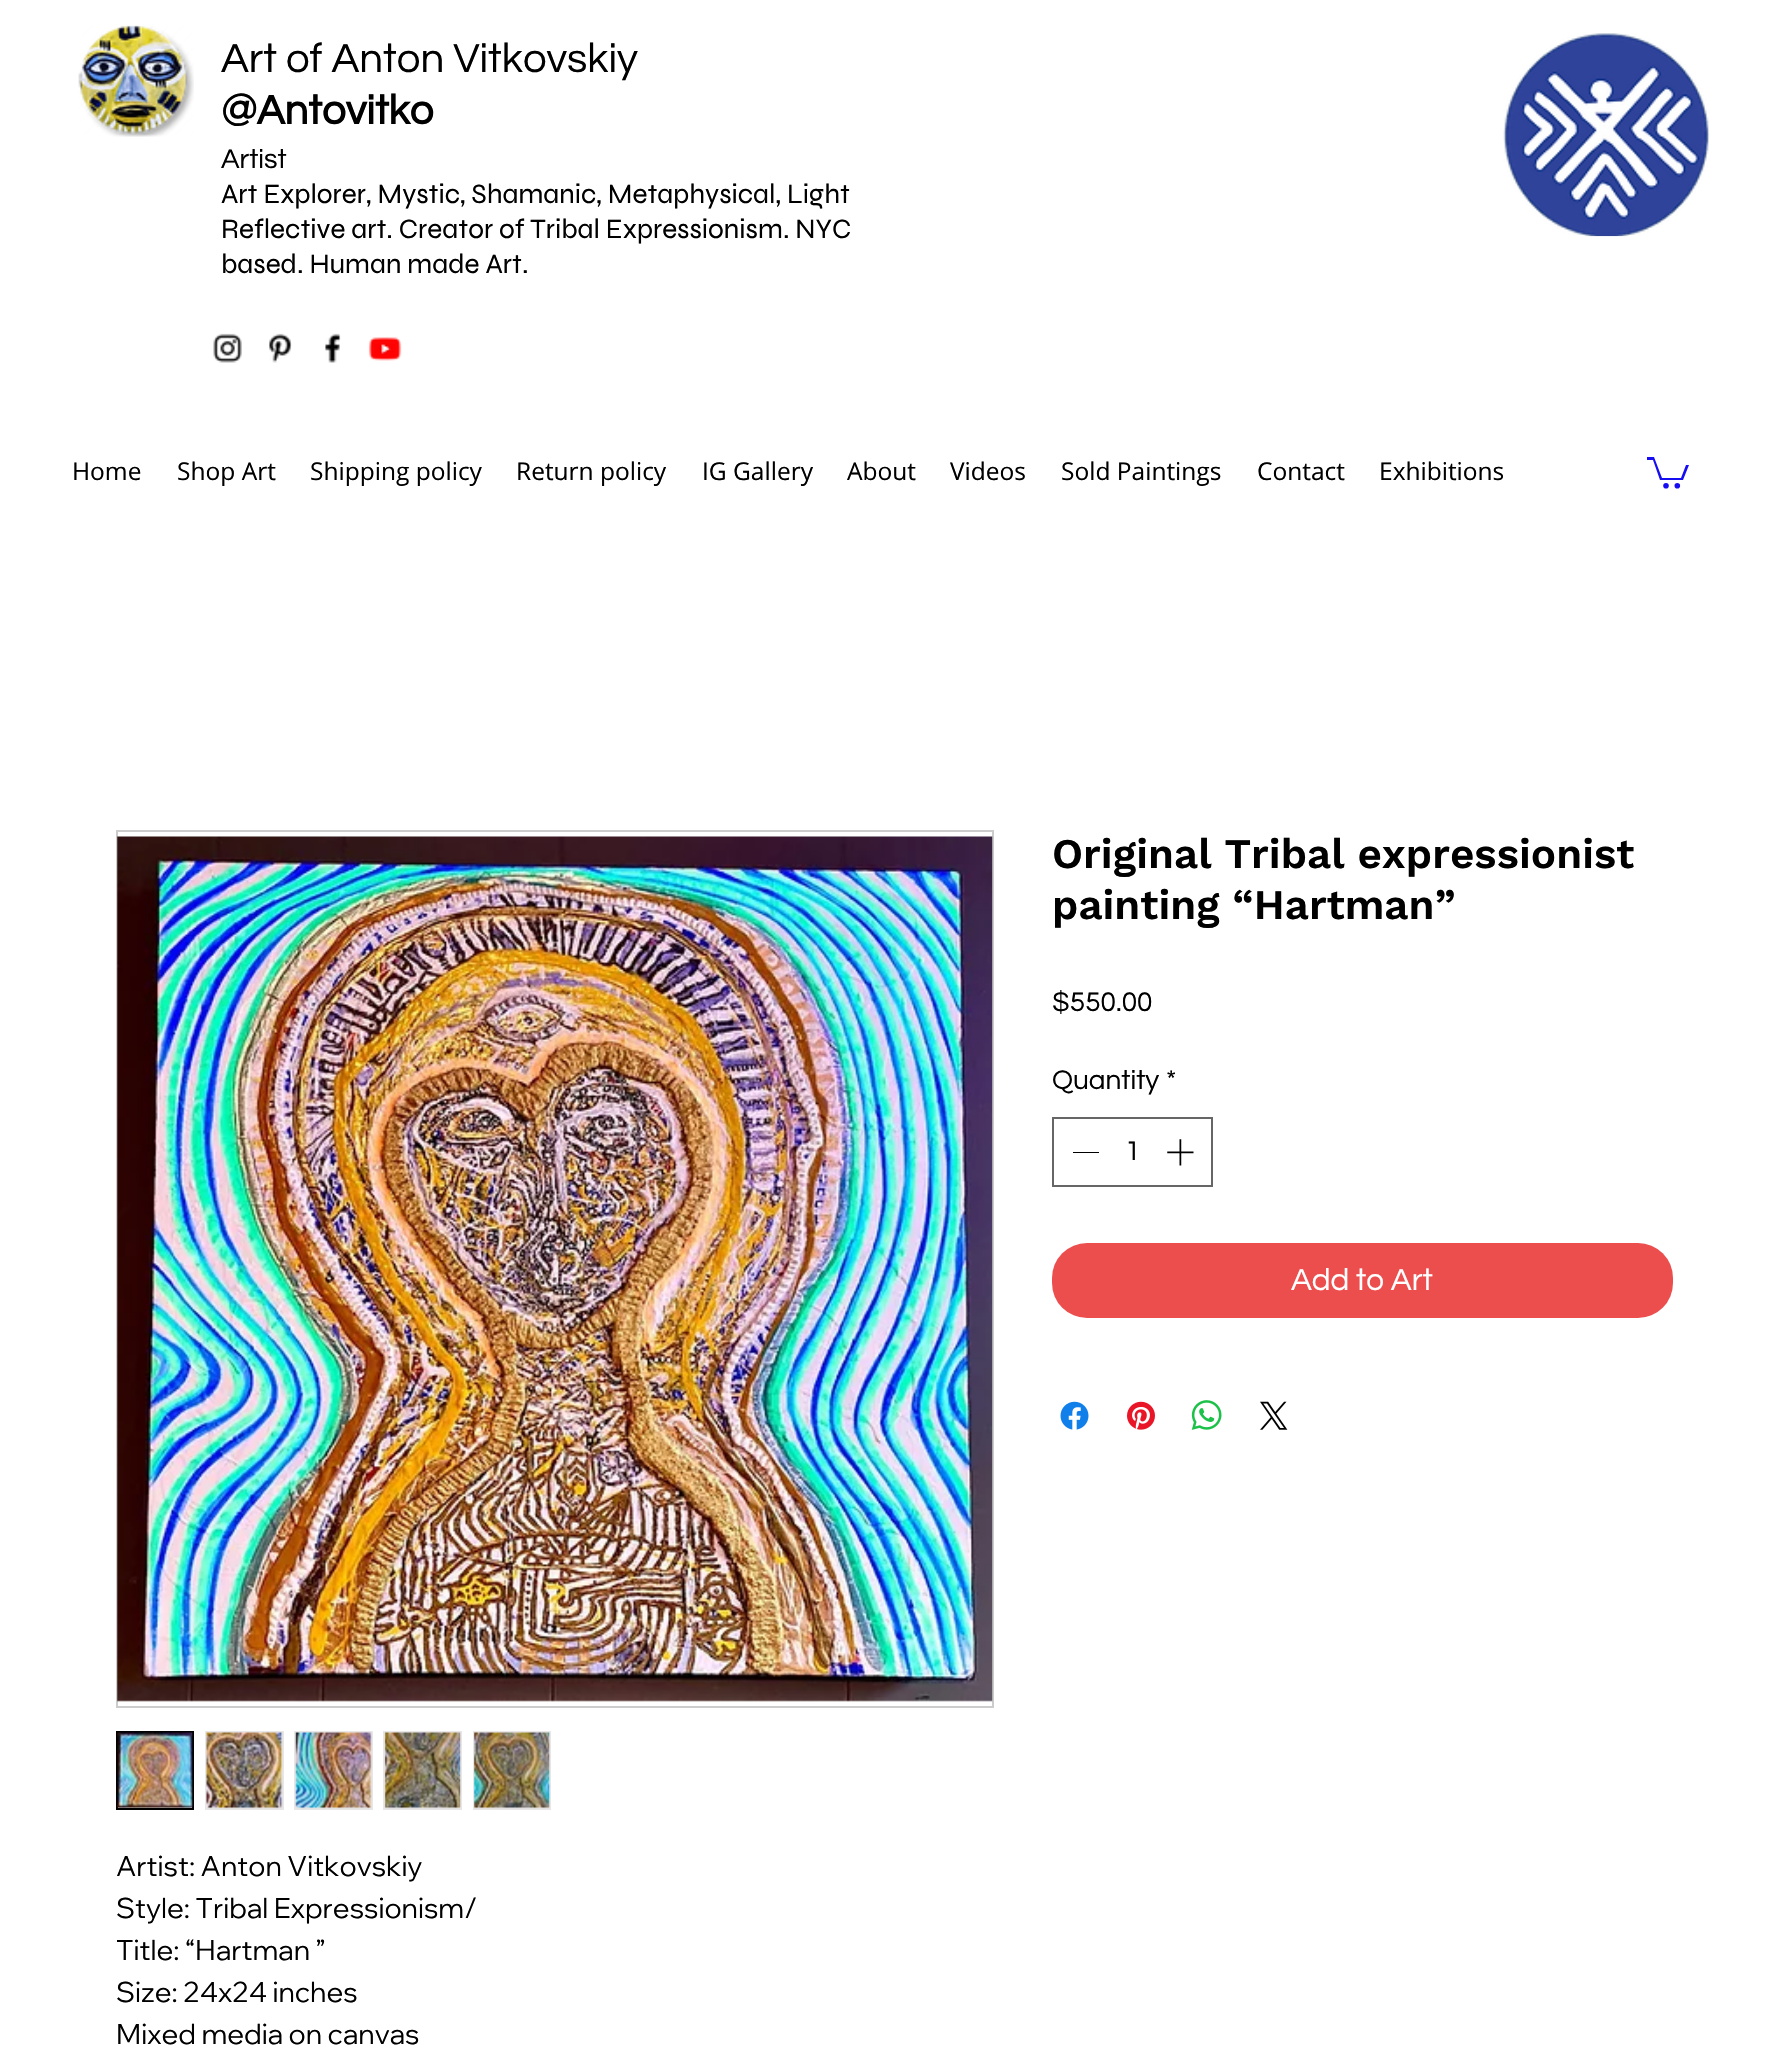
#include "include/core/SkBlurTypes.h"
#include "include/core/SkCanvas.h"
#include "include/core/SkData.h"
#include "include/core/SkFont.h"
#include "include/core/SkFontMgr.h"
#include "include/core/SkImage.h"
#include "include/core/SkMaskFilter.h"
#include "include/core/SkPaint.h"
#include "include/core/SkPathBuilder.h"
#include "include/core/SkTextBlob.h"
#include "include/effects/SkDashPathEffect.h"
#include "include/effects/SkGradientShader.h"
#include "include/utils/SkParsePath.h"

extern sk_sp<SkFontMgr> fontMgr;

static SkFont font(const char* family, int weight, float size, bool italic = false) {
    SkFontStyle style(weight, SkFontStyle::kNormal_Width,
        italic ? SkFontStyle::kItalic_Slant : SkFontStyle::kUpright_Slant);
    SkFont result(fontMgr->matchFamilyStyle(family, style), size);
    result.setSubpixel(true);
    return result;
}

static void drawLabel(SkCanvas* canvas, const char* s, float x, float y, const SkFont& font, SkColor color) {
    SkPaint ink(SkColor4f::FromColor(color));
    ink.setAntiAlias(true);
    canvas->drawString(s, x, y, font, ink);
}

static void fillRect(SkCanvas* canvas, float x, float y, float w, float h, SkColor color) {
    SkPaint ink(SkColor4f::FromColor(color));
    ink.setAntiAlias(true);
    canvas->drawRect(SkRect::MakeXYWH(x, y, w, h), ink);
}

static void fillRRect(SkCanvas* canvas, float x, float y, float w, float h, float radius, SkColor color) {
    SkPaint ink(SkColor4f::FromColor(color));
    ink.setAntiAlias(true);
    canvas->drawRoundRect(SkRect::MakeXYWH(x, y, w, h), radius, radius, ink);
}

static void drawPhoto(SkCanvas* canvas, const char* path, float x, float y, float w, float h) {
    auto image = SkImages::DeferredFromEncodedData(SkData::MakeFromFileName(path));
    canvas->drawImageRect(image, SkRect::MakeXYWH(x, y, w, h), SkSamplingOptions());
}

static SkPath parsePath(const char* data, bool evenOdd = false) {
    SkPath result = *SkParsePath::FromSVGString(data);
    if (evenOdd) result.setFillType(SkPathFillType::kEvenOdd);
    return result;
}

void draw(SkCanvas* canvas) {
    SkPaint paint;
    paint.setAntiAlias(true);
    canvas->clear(0xFFFFFFFF);
    drawPhoto(canvas, "assets/img1.png", 78, 25, 116, 112);
    SkFont font1 = font("Questrial", 400, 42);
    drawLabel(canvas, "Art of Anton Vitkovskiy", 221, 72, font1, 0xFF000000);
    SkFont font2 = font("Questrial", 700, 42);
    drawLabel(canvas, "@Antovitko", 221, 124, font2, 0xFF000000);
    drawPhoto(canvas, "assets/img2.png", 1503, 33, 207, 204);
    SkFont font3 = font("Questrial", 400, 28);
    drawLabel(canvas, "Artist", 221, 168, font3, 0xFF000000);
    SkFont font4 = font("Syne", 400, 28);
    drawLabel(canvas, "Art Explorer, Mystic, Shamanic, Metaphysical, Light", 221, 203, font4, 0xFF000000);
    drawLabel(canvas, "Reflective art. Creator of Tribal Expressionism. NYC", 221, 238, font4, 0xFF000000);
    drawLabel(canvas, "based. Human made Art.", 221, 273, font4, 0xFF000000);
    drawPhoto(canvas, "assets/img3.png", 213, 333, 29, 30);
    drawPhoto(canvas, "assets/img4.png", 269, 333, 23, 30);
    drawPhoto(canvas, "assets/img5.png", 325, 333, 16, 30);
    drawPhoto(canvas, "assets/img6.png", 368, 337, 34, 24);
    SkFont font5 = font("Open Sans", 400, 24.5f);
    drawLabel(canvas, "Home", 72, 480, font5, 0xFF000000);
    drawLabel(canvas, "Shop Art", 177, 480, font5, 0xFF000000);
    drawLabel(canvas, "Shipping policy", 310, 480, font5, 0xFF000000);
    drawLabel(canvas, "Return policy", 516, 480, font5, 0xFF000000);
    drawLabel(canvas, "IG Gallery", 702, 480, font5, 0xFF000000);
    drawLabel(canvas, "About", 847, 480, font5, 0xFF000000);
    drawLabel(canvas, "Videos", 950, 480, font5, 0xFF000000);
    drawLabel(canvas, "Sold Paintings", 1061, 480, font5, 0xFF000000);
    drawLabel(canvas, "Contact", 1257, 480, font5, 0xFF000000);
    drawLabel(canvas, "Exhibitions", 1379, 480, font5, 0xFF000000);
    paint.setColor(0xFF170DF2);
    canvas->drawPath(parsePath("M1689 465L1683 480H1660L1653 460H1647V457H1654L1662 478H1681L1686 465"), paint);
    canvas->drawCircle(1677.3f, 485.7f, 2.8f, paint);
    canvas->drawCircle(1666, 485.7f, 2.8f, paint);
    SkFont font6 = font("Work Sans", 600, 42);
    drawLabel(canvas, "Original Tribal expressionist", 1052, 868, font6, 0xFF000000);
    drawLabel(canvas, "painting “Hartman”", 1052, 919, font6, 0xFF000000);
    drawLabel(canvas, "$550.00", 1052, 1011, font3, 0xFF000000);
    drawLabel(canvas, "Quantity", 1052, 1089, font3, 0xFF000000);
    drawLabel(canvas, "*", 1166, 1089, font3, 0xFF000000);
    paint.setStroke(true);
    paint.setStrokeWidth(2);
    paint.setColor(0xFF666666);
    canvas->drawRect(SkRect::MakeXYWH(1053, 1118, 159, 68), paint);
    fillRect(canvas, 1073, 1152, 26, 1, 0xFF000000);
    drawLabel(canvas, "1", 1125, 1160, font3, 0xFF000000);
    drawPhoto(canvas, "assets/img7.png", 1167, 1139, 27, 27);
    fillRRect(canvas, 1052, 1243, 621, 75, 35, 0xFFEC4D4D);
    SkFont font7 = font("Questrial", 400, 31.5f);
    drawLabel(canvas, "Add to Art", 1291, 1290, font7, 0xFFFFFFFF);
    drawPhoto(canvas, "assets/img8.png", 1060, 1401, 29, 29);
    drawPhoto(canvas, "assets/img9.png", 1127, 1401, 28, 29);
    drawPhoto(canvas, "assets/img10.png", 1191, 1400, 31, 30);
    drawPhoto(canvas, "assets/img11.png", 1260, 1401, 28, 29);
    paint.setColor(0xFFCCCCCC);
    canvas->drawRect(SkRect::MakeXYWH(117, 831, 876, 876), paint);
    drawPhoto(canvas, "assets/img12.png", 117, 836, 876, 866);
    fillRect(canvas, 118, 1807, 74, 1, 0xFFE8E6E6);
    paint.setColor(0xFF000000);
    canvas->drawRect(SkRect::MakeXYWH(117, 1732, 76, 77), paint);
    drawPhoto(canvas, "assets/img13.png", 117, 1732, 76, 76);
    fillRect(canvas, 205, 1731, 79, 79, 0xFFE8E6E6);
    drawPhoto(canvas, "assets/img14.png", 206, 1732, 77, 77);
    fillRect(canvas, 294, 1731, 79, 79, 0xFFE8E6E6);
    drawPhoto(canvas, "assets/img15.png", 295, 1732, 77, 77);
    fillRect(canvas, 383, 1731, 79, 79, 0xFFE8E6E6);
    drawPhoto(canvas, "assets/img16.png", 384, 1732, 77, 77);
    fillRect(canvas, 473, 1731, 78, 79, 0xFFE8E6E6);
    drawPhoto(canvas, "assets/img17.png", 474, 1732, 76, 77);
    SkFont font8 = font("Wix Madefor Display", 400, 28);
    drawLabel(canvas, "Artist: Anton Vitkovskiy", 116, 1876, font8, 0xFF000000);
    drawLabel(canvas, "Style: Tribal Expressionism/", 116, 1918, font8, 0xFF000000);
    drawLabel(canvas, "Title: “Hartman ”", 116, 1960, font8, 0xFF000000);
    drawLabel(canvas, "Size: 24x24 inches", 116, 2002, font8, 0xFF000000);
    drawLabel(canvas, "Mixed media on canvas", 116, 2044, font8, 0xFF000000);
}
